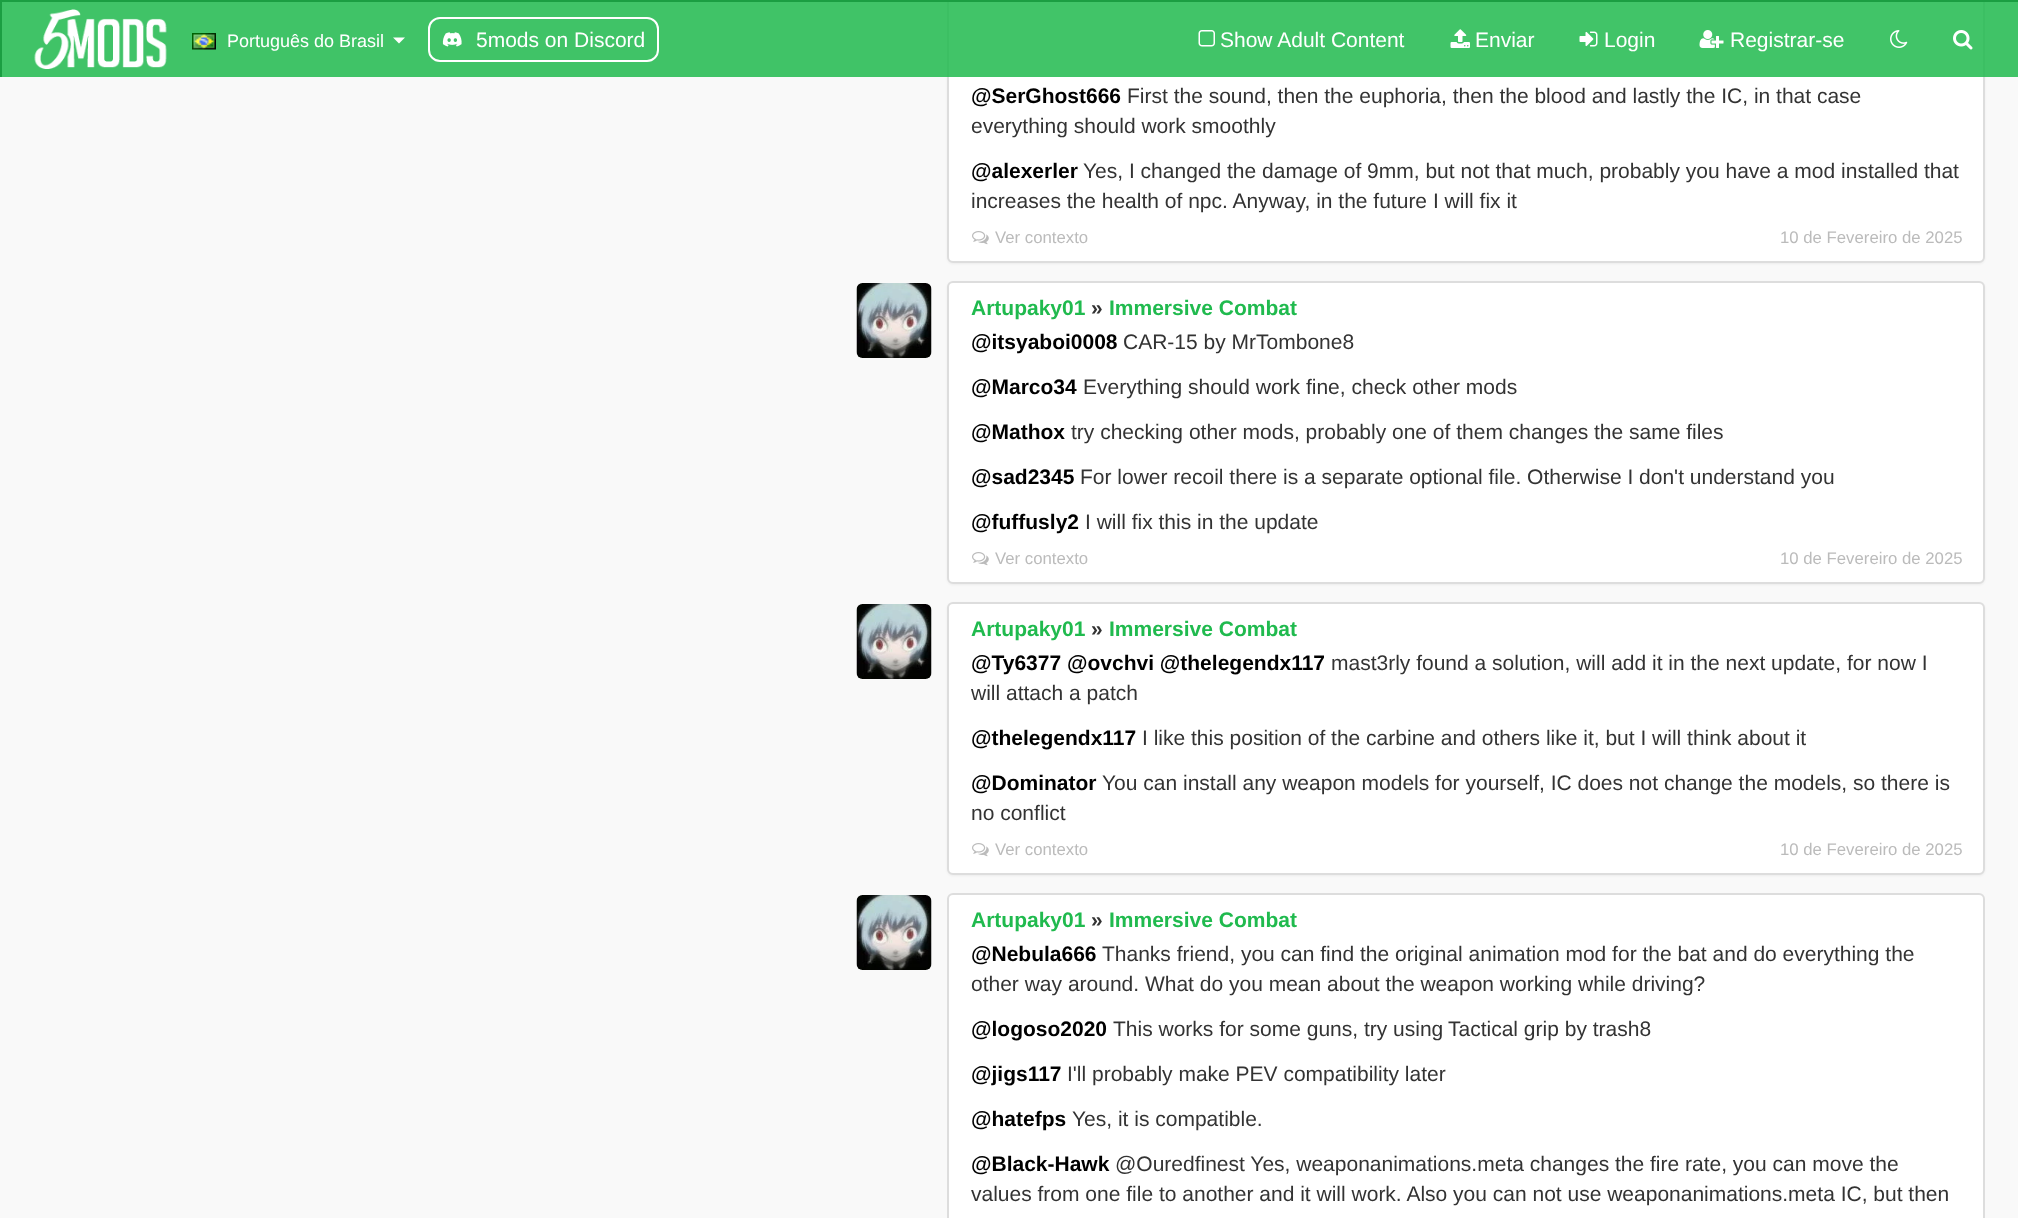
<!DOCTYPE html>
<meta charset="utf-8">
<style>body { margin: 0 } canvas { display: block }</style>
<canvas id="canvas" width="2018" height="1218"></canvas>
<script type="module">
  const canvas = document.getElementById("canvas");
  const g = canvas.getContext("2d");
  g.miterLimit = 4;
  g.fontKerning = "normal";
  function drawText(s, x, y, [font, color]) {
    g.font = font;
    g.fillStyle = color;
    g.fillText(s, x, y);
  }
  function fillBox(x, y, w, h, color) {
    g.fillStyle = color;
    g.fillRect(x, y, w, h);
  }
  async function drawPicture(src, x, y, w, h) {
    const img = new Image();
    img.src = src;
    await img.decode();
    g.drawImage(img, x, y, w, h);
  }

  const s1 = ["18px Liberation Sans", "#FFFFFF"];
  const s2 = ["21px Liberation Sans", "#FFFFFF"];
  const s3 = ["bold 21px Liberation Sans", "#000000"];
  const s4 = ["21px Liberation Sans", "#333333"];
  const s5 = ["16.75px Liberation Sans", "#BBBBBB"];
  const s6 = ["bold 21px Liberation Sans", "#20BA4E"];
  const s7 = ["bold 21px Liberation Sans", "#333333"];

  fillBox(0, 0, 2018, 1218, "#F9F9F9");
  g.fillStyle = "rgba(0, 0, 0, 0.05)";
  g.filter = "blur(1px)";
  g.beginPath();
  g.roundRect(947, -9, 1038, 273, 6);
  g.fill();
  g.filter = "none";
  g.fillStyle = "#FFFFFF";
  g.beginPath();
  g.roundRect(948, -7, 1036, 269, 5);
  g.fill();
  g.strokeStyle = "#DDDDDD";
  g.lineWidth = 2;
  g.stroke();
  fillBox(2, 2, 2016, 75, "rgba(32, 186, 78, 0.85)");
  fillBox(0, 0, 2018, 2, "#1B9E42");
  fillBox(0, 0, 2, 77, "#1B9E42");
  await drawPicture("pic1.png", 34, 9, 133, 60);
  await drawPicture("pic2.png", 192, 33, 24, 17);
  drawText("Português do Brasil", 227, 47, s1);
  g.beginPath();
  g.moveTo(393, 37.5);
  g.lineTo(405, 37.5);
  g.lineTo(399, 43.5);
  g.closePath();
  g.fill();
  g.beginPath();
  g.roundRect(429, 18, 229, 43, 11);
  g.strokeStyle = "#FFFFFF";
  g.stroke();
  await drawPicture("pic3.png", 442, 32, 20, 15);
  drawText("5mods on Discord", 476, 47, s2);
  await drawPicture("pic4.png", 1198, 30, 17, 17);
  drawText("Show Adult Content", 1220, 47, s2);
  await drawPicture("pic5.png", 1450, 29, 20, 19);
  drawText("Enviar", 1475, 47, s2);
  await drawPicture("pic6.png", 1579, 31, 19, 16);
  drawText("Login", 1604, 47, s2);
  await drawPicture("pic7.png", 1699, 30, 25, 18);
  drawText("Registrar-se", 1730, 47, s2);
  await drawPicture("pic8.png", 1890, 30, 18, 18);
  await drawPicture("pic9.png", 1953, 30, 20, 20);
  drawText("@SerGhost666", 971, 103, s3);
  drawText("First the sound, then the euphoria, then the blood and lastly the IC, in that case", 1127, 103, s4);
  drawText("everything should work smoothly", 971, 133, s4);
  drawText("@alexerler", 971, 178, s3);
  drawText("Yes, I changed the damage of 9mm, but not that much, probably you have a mod installed that", 1083, 178, s4);
  drawText("increases the health of npc. Anyway, in the future I will fix it", 971, 208, s4);
  await drawPicture("pic10.png", 972, 231, 17, 14);
  drawText("Ver contexto", 995, 243, s5);
  drawText("10 de Fevereiro de 2025", 1780, 243, s5);
  await drawPicture("pic11.png", 856, 283, 76, 75);
  g.fillStyle = "rgba(0, 0, 0, 0.05)";
  g.filter = "blur(1px)";
  g.beginPath();
  g.roundRect(947, 282, 1038, 303, 6);
  g.fill();
  g.filter = "none";
  g.fillStyle = "#FFFFFF";
  g.beginPath();
  g.roundRect(948, 282, 1036, 301, 5);
  g.fill();
  g.strokeStyle = "#DDDDDD";
  g.stroke();
  drawText("Artupaky01", 971, 315, s6);
  drawText("»", 1091, 315, s7);
  drawText("Immersive Combat", 1109, 315, s6);
  drawText("@itsyaboi0008", 971, 349, s3);
  drawText("CAR-15 by MrTombone8", 1123, 349, s4);
  drawText("@Marco34", 971, 394, s3);
  drawText("Everything should work fine, check other mods", 1083, 394, s4);
  drawText("@Mathox", 971, 439, s3);
  drawText("try checking other mods, probably one of them changes the same files", 1071, 439, s4);
  drawText("@sad2345", 971, 484, s3);
  drawText("For lower recoil there is a separate optional file. Otherwise I don't understand you", 1080, 484, s4);
  drawText("@fuffusly2", 971, 529, s3);
  drawText("I will fix this in the update", 1085, 529, s4);
  await drawPicture("pic10.png", 972, 552, 17, 14);
  drawText("Ver contexto", 995, 564, s5);
  drawText("10 de Fevereiro de 2025", 1780, 564, s5);
  await drawPicture("pic11.png", 856, 604, 76, 75);
  g.fillStyle = "rgba(0, 0, 0, 0.05)";
  g.filter = "blur(1px)";
  g.beginPath();
  g.roundRect(947, 603, 1038, 273, 6);
  g.fill();
  g.filter = "none";
  g.fillStyle = "#FFFFFF";
  g.beginPath();
  g.roundRect(948, 603, 1036, 271, 5);
  g.fill();
  g.stroke();
  drawText("Artupaky01", 971, 636, s6);
  drawText("»", 1091, 636, s7);
  drawText("Immersive Combat", 1109, 636, s6);
  drawText("@Ty6377 @ovchvi @thelegendx117", 971, 670, s3);
  drawText("mast3rly found a solution, will add it in the next update, for now I", 1331, 670, s4);
  drawText("will attach a patch", 971, 700, s4);
  drawText("@thelegendx117", 971, 745, s3);
  drawText("I like this position of the carbine and others like it, but I will think about it", 1142, 745, s4);
  drawText("@Dominator", 971, 790, s3);
  drawText("You can install any weapon models for yourself, IC does not change the models, so there is", 1102, 790, s4);
  drawText("no conflict", 971, 820, s4);
  await drawPicture("pic10.png", 972, 843, 17, 14);
  drawText("Ver contexto", 995, 855, s5);
  drawText("10 de Fevereiro de 2025", 1780, 855, s5);
  await drawPicture("pic11.png", 856, 895, 76, 75);
  g.fillStyle = "#FFFFFF";
  g.beginPath();
  g.roundRect(948, 894, 1036, 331, 5);
  g.fill();
  g.stroke();
  drawText("Artupaky01", 971, 927, s6);
  drawText("»", 1091, 927, s7);
  drawText("Immersive Combat", 1109, 927, s6);
  drawText("@Nebula666", 971, 961, s3);
  drawText("Thanks friend, you can find the original animation mod for the bat and do everything the", 1102, 961, s4);
  drawText("other way around. What do you mean about the weapon working while driving?", 971, 991, s4);
  drawText("@logoso2020", 971, 1036, s3);
  drawText("This works for some guns, try using", 1113, 1036, s4);
  drawText("Tactical grip by trash8", 1448, 1036, s4);
  drawText("@jigs117", 971, 1081, s3);
  drawText("I'll probably make PEV compatibility later", 1067, 1081, s4);
  drawText("@hatefps", 971, 1126, s3);
  drawText("Yes, it is compatible.", 1072, 1126, s4);
  drawText("@Black-Hawk", 971, 1171, s3);
  drawText("@Ouredfinest Yes, weaponanimations.meta changes the fire rate, you can move the", 1115, 1171, s4);
  drawText("values from one file to another and it will work. Also you can not use weaponanimations.meta IC, but then", 971, 1201, s4);
</script>
